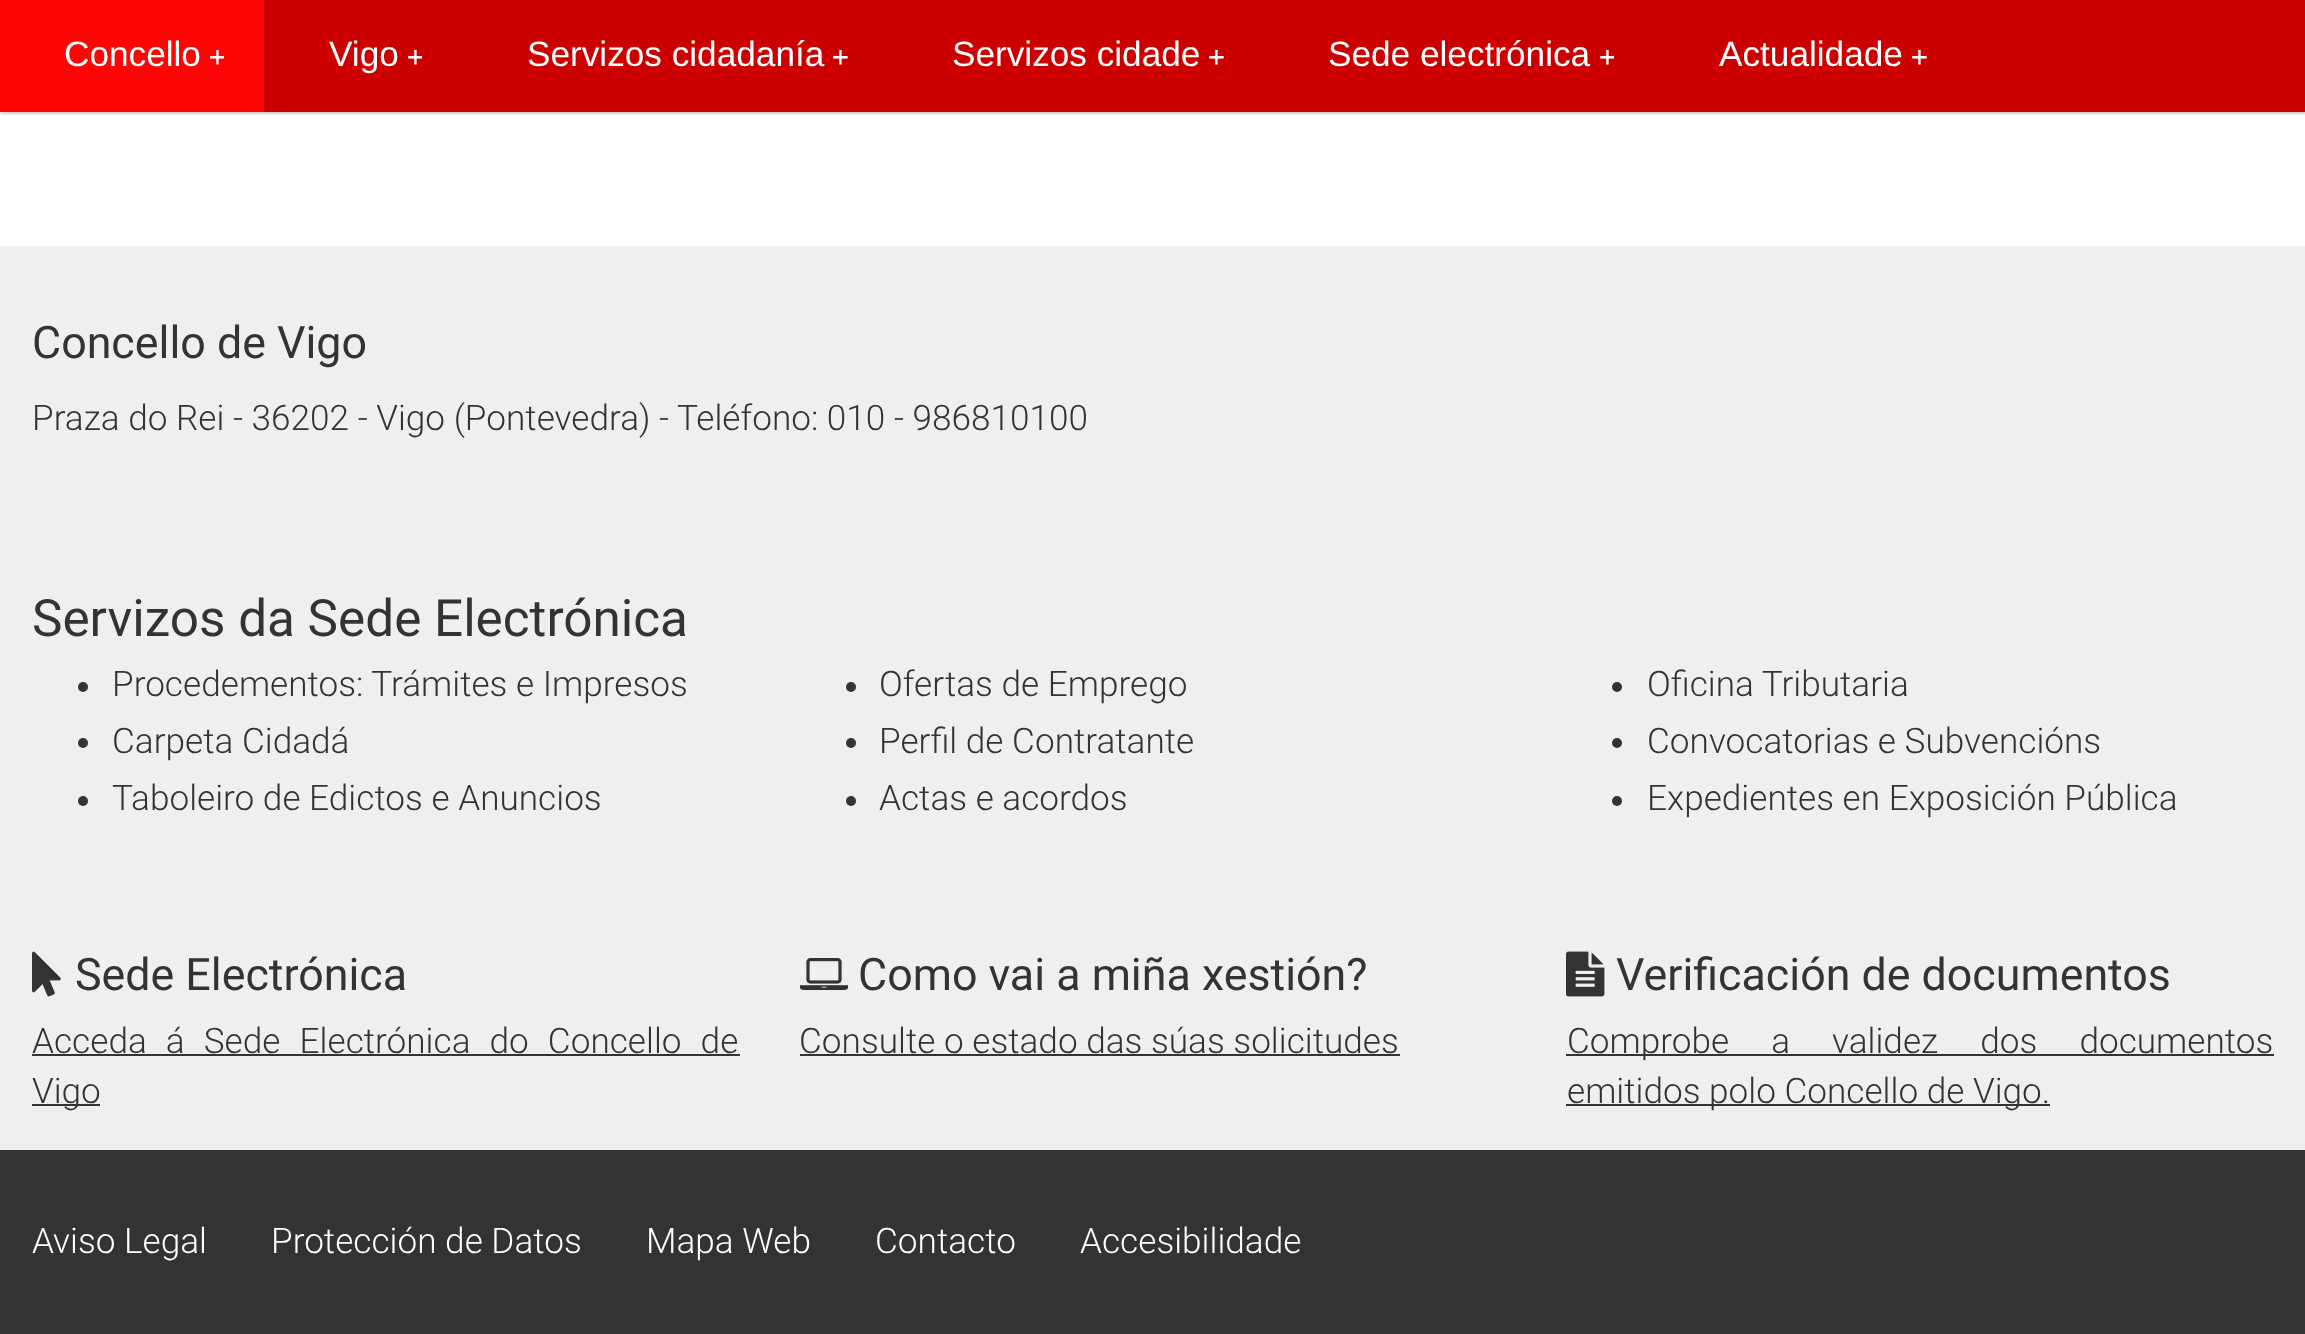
<!DOCTYPE html>
<meta charset="utf-8">
<style>body { margin: 0 } canvas { display: block }</style>
<canvas id="canvas" width="2305" height="1334"></canvas>
<script type="module">
  const canvas = document.getElementById("canvas");
  const g = canvas.getContext("2d");
  g.miterLimit = 4;
  g.fontKerning = "normal";
  function drawText(s, x, y, [font, color]) {
    g.font = font;
    g.fillStyle = color;
    g.fillText(s, x, y);
  }
  function fillBox(x, y, w, h, color) {
    g.fillStyle = color;
    g.fillRect(x, y, w, h);
  }
  async function drawPicture(src, x, y, w, h) {
    const img = new Image();
    img.src = src;
    await img.decode();
    g.drawImage(img, x, y, w, h);
  }

  const s1 = ["35.2px Liberation Sans", "#FFFFFF"];
  const s2 = ["28px DejaVu Sans Mono", "#FFFFFF"];
  const s3 = ["44.75px Roboto", "#333333"];
  const s4 = ["300 35.2px Roboto", "#333333"];
  const s5 = ["51.25px Roboto", "#333333"];
  const s6 = ["300 35.2px Roboto", "#FFFFFF"];

  fillBox(0, 0, 2305, 1334, "#FFFFFF");
  fillBox(264, 0, 2041, 112, "#CC0000");
  g.save();
  g.beginPath();
  g.rect(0, 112, 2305, 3);
  g.clip();
  g.fillStyle = "rgba(0, 0, 0, 0.2)";
  g.filter = "blur(1px)";
  g.beginPath();
  g.rect(0, 2, 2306, 112);
  g.fill();
  g.filter = "none";
  g.restore();
  fillBox(0, 0, 264, 112, "#FF0606");
  drawText("Concello", 64, 66, s1);
  g.save();
  g.beginPath();
  g.rect(208, 40, 16, 32);
  g.clip();
  drawText("+", 209, 66, s2);
  g.restore();
  drawText("Vigo", 329, 66, s1);
  g.save();
  g.beginPath();
  g.rect(406, 40, 16, 32);
  g.clip();
  drawText("+", 407, 66, s2);
  g.restore();
  drawText("Servizos cidadanía", 527, 66, s1);
  drawText("+", 832, 66, s2);
  drawText("Servizos cidade", 952, 66, s1);
  drawText("+", 1208, 66, s2);
  drawText("Sede electrónica", 1328, 66, s1);
  g.save();
  g.beginPath();
  g.rect(1598, 40, 16, 32);
  g.clip();
  drawText("+", 1599, 66, s2);
  g.restore();
  drawText("Actualidade", 1719, 66, s1);
  drawText("+", 1911, 66, s2);
  fillBox(0, 246, 2305, 904, "#F0EFEF");
  drawText("Concello de Vigo", 32, 358, s3);
  drawText("Praza do Rei - 36202 - Vigo (Pontevedra) - Teléfono: 010 - 986810100", 32, 430, s4);
  drawText("Servizos da Sede Electrónica", 32, 636, s5);
  g.beginPath();
  g.arc(83, 687, 5, 0, Math.PI * 2);
  g.fill();
  drawText("Procedementos: Trámites e Impresos", 112, 696, s4);
  g.beginPath();
  g.arc(83, 743, 5, 0, Math.PI * 2);
  g.fill();
  drawText("Carpeta Cidadá", 112, 753, s4);
  g.beginPath();
  g.arc(83, 801, 5, 0, Math.PI * 2);
  g.fill();
  drawText("Taboleiro de Edictos e Anuncios", 112, 810, s4);
  g.beginPath();
  g.arc(851, 687, 5, 0, Math.PI * 2);
  g.fill();
  drawText("Ofertas de Emprego", 879, 696, s4);
  g.beginPath();
  g.arc(851, 743, 5, 0, Math.PI * 2);
  g.fill();
  drawText("Perfil de Contratante", 879, 753, s4);
  g.beginPath();
  g.arc(851, 801, 5, 0, Math.PI * 2);
  g.fill();
  drawText("Actas e acordos", 879, 810, s4);
  g.beginPath();
  g.arc(1617, 687, 5, 0, Math.PI * 2);
  g.fill();
  drawText("Oficina Tributaria", 1647, 696, s4);
  g.beginPath();
  g.arc(1617, 743, 5, 0, Math.PI * 2);
  g.fill();
  drawText("Convocatorias e Subvencións", 1647, 753, s4);
  g.beginPath();
  g.arc(1617, 801, 5, 0, Math.PI * 2);
  g.fill();
  drawText("Expedientes en Exposición Pública", 1647, 810, s4);
  await drawPicture("pic1.png", 32, 951, 29, 46);
  drawText("Sede Electrónica", 75, 990, s3);
  g.wordSpacing = "10.5px";
  drawText("Acceda á Sede Electrónica do Concello de", 32, 1053, s4);
  fillBox(32, 1054, 708, 2, "#333333");
  fillBox(32, 1104, 68, 2, "#333333");
  g.wordSpacing = "0px";
  drawText("Vigo", 32, 1103, s4);
  await drawPicture("pic2.png", 800, 958, 48, 32);
  drawText("Como vai a miña xestión?", 858, 990, s3);
  drawText("Consulte o estado das súas solicitudes", 799, 1053, s4);
  fillBox(800, 1054, 600, 2, "#333333");
  await drawPicture("pic3.png", 1566, 951, 39, 46);
  drawText("Verificación de documentos", 1616, 990, s3);
  fillBox(1566, 1054, 708, 2, "#333333");
  g.wordSpacing = "33.5px";
  drawText("Comprobe a validez dos documentos", 1567, 1053, s4);
  fillBox(1566, 1104, 484, 2, "#333333");
  g.wordSpacing = "0px";
  drawText("emitidos polo Concello de Vigo.", 1567, 1103, s4);
  fillBox(0, 1150, 2305, 184, "#333333");
  drawText("Aviso Legal", 32, 1253, s6);
  drawText("Protección de Datos", 271, 1253, s6);
  drawText("Mapa Web", 646, 1253, s6);
  drawText("Contacto", 875, 1253, s6);
  drawText("Accesibilidade", 1080, 1253, s6);
</script>
